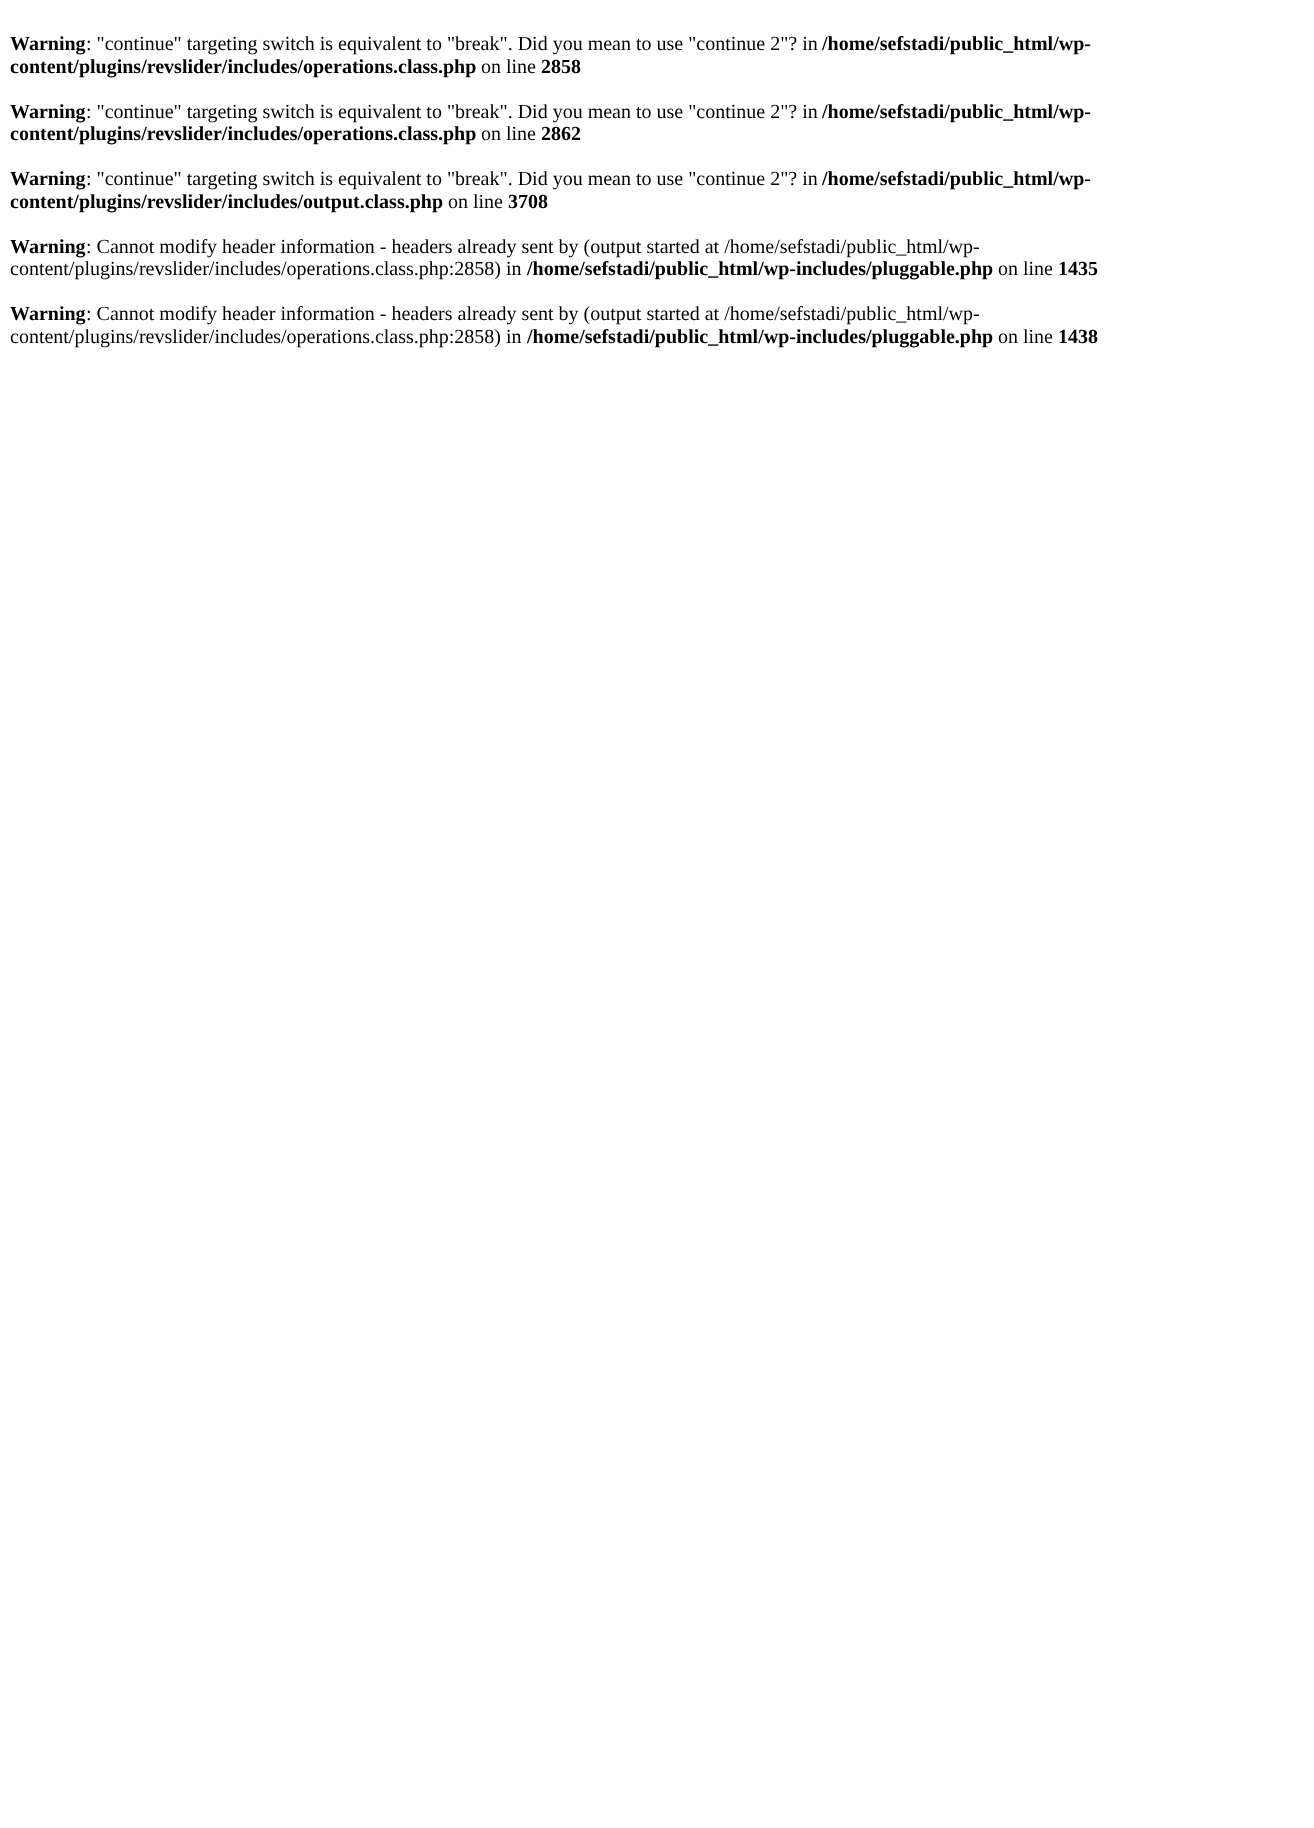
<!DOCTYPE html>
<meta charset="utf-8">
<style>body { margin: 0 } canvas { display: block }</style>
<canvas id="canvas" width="1314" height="1828"></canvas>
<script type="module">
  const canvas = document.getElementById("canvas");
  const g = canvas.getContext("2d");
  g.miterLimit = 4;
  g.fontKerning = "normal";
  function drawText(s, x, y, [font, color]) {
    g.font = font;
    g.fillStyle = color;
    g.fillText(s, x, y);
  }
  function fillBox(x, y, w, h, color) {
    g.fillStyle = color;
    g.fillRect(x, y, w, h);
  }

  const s1 = ["bold 20px Liberation Serif", "#000000"];
  const s2 = ["20px Liberation Serif", "#000000"];

  fillBox(0, 0, 1314, 1828, "#FFFFFF");
  drawText("Warning", 10, 50, s1);
  drawText(": \"continue\" targeting switch is equivalent to \"break\". Did you mean to use \"continue 2\"? in", 86, 50, s2);
  drawText("/home/sefstadi/public_html/wp-", 822, 50, s1);
  drawText("content/plugins/revslider/includes/operations.class.php", 10, 73, s1);
  drawText("on line", 481, 73, s2);
  drawText("2858", 541, 73, s1);
  drawText("Warning", 10, 118, s1);
  drawText(": \"continue\" targeting switch is equivalent to \"break\". Did you mean to use \"continue 2\"? in", 86, 118, s2);
  drawText("/home/sefstadi/public_html/wp-", 822, 118, s1);
  drawText("content/plugins/revslider/includes/operations.class.php", 10, 140, s1);
  drawText("on line", 481, 140, s2);
  drawText("2862", 541, 140, s1);
  drawText("Warning", 10, 185, s1);
  drawText(": \"continue\" targeting switch is equivalent to \"break\". Did you mean to use \"continue 2\"? in", 86, 185, s2);
  drawText("/home/sefstadi/public_html/wp-", 822, 185, s1);
  drawText("content/plugins/revslider/includes/output.class.php", 10, 208, s1);
  drawText("on line", 448, 208, s2);
  drawText("3708", 508, 208, s1);
  drawText("Warning", 10, 253, s1);
  drawText(": Cannot modify header information - headers already sent by (output started at /home/sefstadi/public_html/wp-", 86, 253, s2);
  drawText("content/plugins/revslider/includes/operations.class.php:2858) in", 10, 275, s2);
  drawText("/home/sefstadi/public_html/wp-includes/pluggable.php", 527, 275, s1);
  drawText("on line", 998, 275, s2);
  drawText("1435", 1058, 275, s1);
  drawText("Warning", 10, 320, s1);
  drawText(": Cannot modify header information - headers already sent by (output started at /home/sefstadi/public_html/wp-", 86, 320, s2);
  drawText("content/plugins/revslider/includes/operations.class.php:2858) in", 10, 343, s2);
  drawText("/home/sefstadi/public_html/wp-includes/pluggable.php", 527, 343, s1);
  drawText("on line", 998, 343, s2);
  drawText("1438", 1058, 343, s1);
</script>
